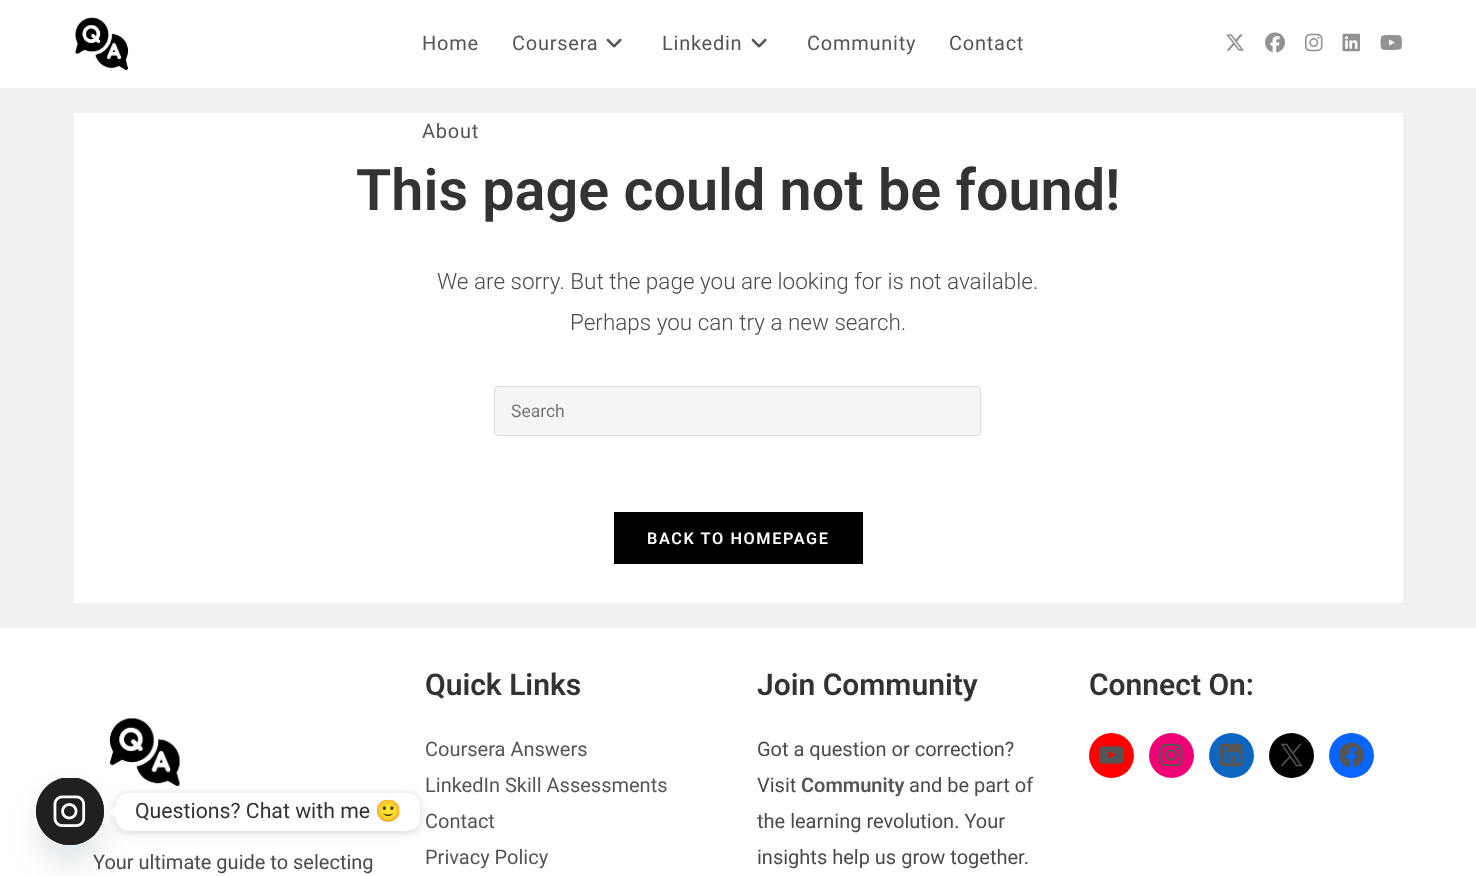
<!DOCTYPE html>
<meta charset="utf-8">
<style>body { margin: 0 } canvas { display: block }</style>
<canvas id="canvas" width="1476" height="876"></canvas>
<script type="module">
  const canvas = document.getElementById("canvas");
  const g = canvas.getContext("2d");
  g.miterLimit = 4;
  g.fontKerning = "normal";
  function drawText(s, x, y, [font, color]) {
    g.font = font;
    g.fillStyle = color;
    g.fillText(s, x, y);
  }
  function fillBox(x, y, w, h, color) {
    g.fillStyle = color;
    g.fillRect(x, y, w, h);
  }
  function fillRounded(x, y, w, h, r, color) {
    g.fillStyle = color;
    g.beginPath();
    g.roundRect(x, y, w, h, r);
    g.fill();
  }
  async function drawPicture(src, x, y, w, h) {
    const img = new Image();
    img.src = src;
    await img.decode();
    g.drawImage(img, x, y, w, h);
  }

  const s1 = ["20px Roboto", "#555555"];
  const s2 = ["600 57.5px Roboto", "#333333"];
  const s3 = ["300 22.5px Roboto", "#4A4A4A"];
  const s4 = ["17.5px Roboto", "#757575"];
  const s5 = ["600 16.25px Roboto", "#FFFFFF"];
  const s6 = ["600 30px Roboto", "#333333"];
  const s7 = ["20px Roboto", "#4A4A4A"];
  const s8 = ["600 20px Roboto", "#555555"];
  const s9 = ["21.25px Roboto", "#333333"];
  const s10 = ["21.25px Noto Color Emoji", "#333333"];

  fillBox(0, 0, 1476, 876, "#F1F1F1");
  fillBox(0, 0, 1476, 88, "#FFFFFF");
  await drawPicture("pic1.png", 75, 17, 54, 54);
  g.letterSpacing = "0.75px";
  drawText("Home", 422, 50, s1);
  drawText("Coursera", 512, 50, s1);
  await drawPicture("pic2.png", 606, 38, 16, 10);
  drawText("Linkedin", 662, 50, s1);
  await drawPicture("pic2.png", 751, 38, 16, 10);
  drawText("Community", 807, 50, s1);
  drawText("Contact", 949, 50, s1);
  fillBox(74, 113, 1329, 490, "#FFFFFF");
  drawText("About", 422, 138, s1);
  await drawPicture("pic3.png", 1226, 34, 18, 17);
  await drawPicture("pic4.png", 1265, 32, 20, 21);
  await drawPicture("pic5.png", 1305, 33, 18, 19);
  await drawPicture("pic6.png", 1342, 33, 18, 19);
  await drawPicture("pic7.png", 1380, 35, 22, 15);
  g.letterSpacing = "0px";
  drawText("This page could not be found!", 356, 210, s2);
  drawText("We are sorry. But the page you are looking for is not available.", 437, 289, s3);
  drawText("Perhaps you can try a new search.", 570, 330, s3);
  g.fillStyle = "#F5F5F5";
  g.beginPath();
  g.roundRect(494.5, 386.5, 486, 49, 3.5);
  g.fill();
  g.strokeStyle = "#DDDDDD";
  g.stroke();
  drawText("Search", 511, 417, s4);
  fillBox(614, 512, 249, 52, "#000000");
  g.letterSpacing = "1.6px";
  drawText("BACK TO HOMEPAGE", 647, 544, s5);
  fillBox(0, 628, 1476, 248, "#FFFFFF");
  g.letterSpacing = "0px";
  drawText("Quick Links", 425, 695, s6);
  drawText("Coursera Answers", 425, 756, s1);
  drawText("LinkedIn Skill Assessments", 425, 792, s1);
  drawText("Contact", 425, 828, s1);
  drawText("Privacy Policy", 425, 864, s1);
  drawText("Join Community", 757, 695, s6);
  drawText("Got a question or correction?", 757, 756, s7);
  drawText("Visit", 757, 792, s7);
  drawText("Community", 801, 792, s8);
  drawText("and be part of", 909, 792, s7);
  drawText("the learning revolution. Your", 757, 828, s7);
  drawText("insights help us grow together.", 757, 864, s7);
  drawText("Connect On:", 1089, 695, s6);
  g.fillStyle = "#FF0000";
  g.beginPath();
  g.arc(1111.5, 755.5, 22.5, 0, Math.PI * 2);
  g.fill();
  await drawPicture("pic8.png", 1098, 746, 26, 18);
  g.fillStyle = "#F00075";
  g.beginPath();
  g.arc(1171.5, 755.5, 22.5, 0, Math.PI * 2);
  g.fill();
  await drawPicture("pic9.png", 1160, 743, 23, 24);
  g.fillStyle = "#0D66C2";
  g.beginPath();
  g.arc(1231.5, 755.5, 22.5, 0, Math.PI * 2);
  g.fill();
  await drawPicture("pic10.png", 1220, 743, 23, 24);
  g.fillStyle = "#000000";
  g.beginPath();
  g.arc(1291.5, 755.5, 22.5, 0, Math.PI * 2);
  g.fill();
  await drawPicture("pic11.png", 1280, 743, 23, 24);
  g.fillStyle = "#0866FF";
  g.beginPath();
  g.arc(1351.5, 755.5, 22.5, 0, Math.PI * 2);
  g.fill();
  await drawPicture("pic12.png", 1338, 742, 26, 26);
  await drawPicture("pic13.png", 109, 717, 72, 70);
  drawText("Your ultimate guide to selecting", 93, 869, s7);
  g.fillStyle = "rgba(73, 104, 126, 0.16)";
  g.filter = "blur(15px)";
  g.beginPath();
  g.roundRect(36, 798, 68, 67, 33.5);
  g.fill();
  g.filter = "none";
  fillRounded(36, 778, 68, 67, 33.5, "#202020");
  await drawPicture("pic14.png", 36, 778, 68, 67);
  g.fillStyle = "rgba(0, 0, 0, 0.15)";
  g.filter = "blur(5px)";
  g.beginPath();
  g.roundRect(116, 794, 304, 39, 13);
  g.fill();
  g.filter = "none";
  fillRounded(116, 793, 304, 38, 13, "#FFFFFF");
  g.beginPath();
  g.moveTo(116, 805.5);
  g.lineTo(116, 818);
  g.lineTo(110, 812);
  g.closePath();
  g.fill();
  drawText("Questions? Chat with me", 135, 818, s9);
  drawText("🙂", 375, 818, s10);
</script>
